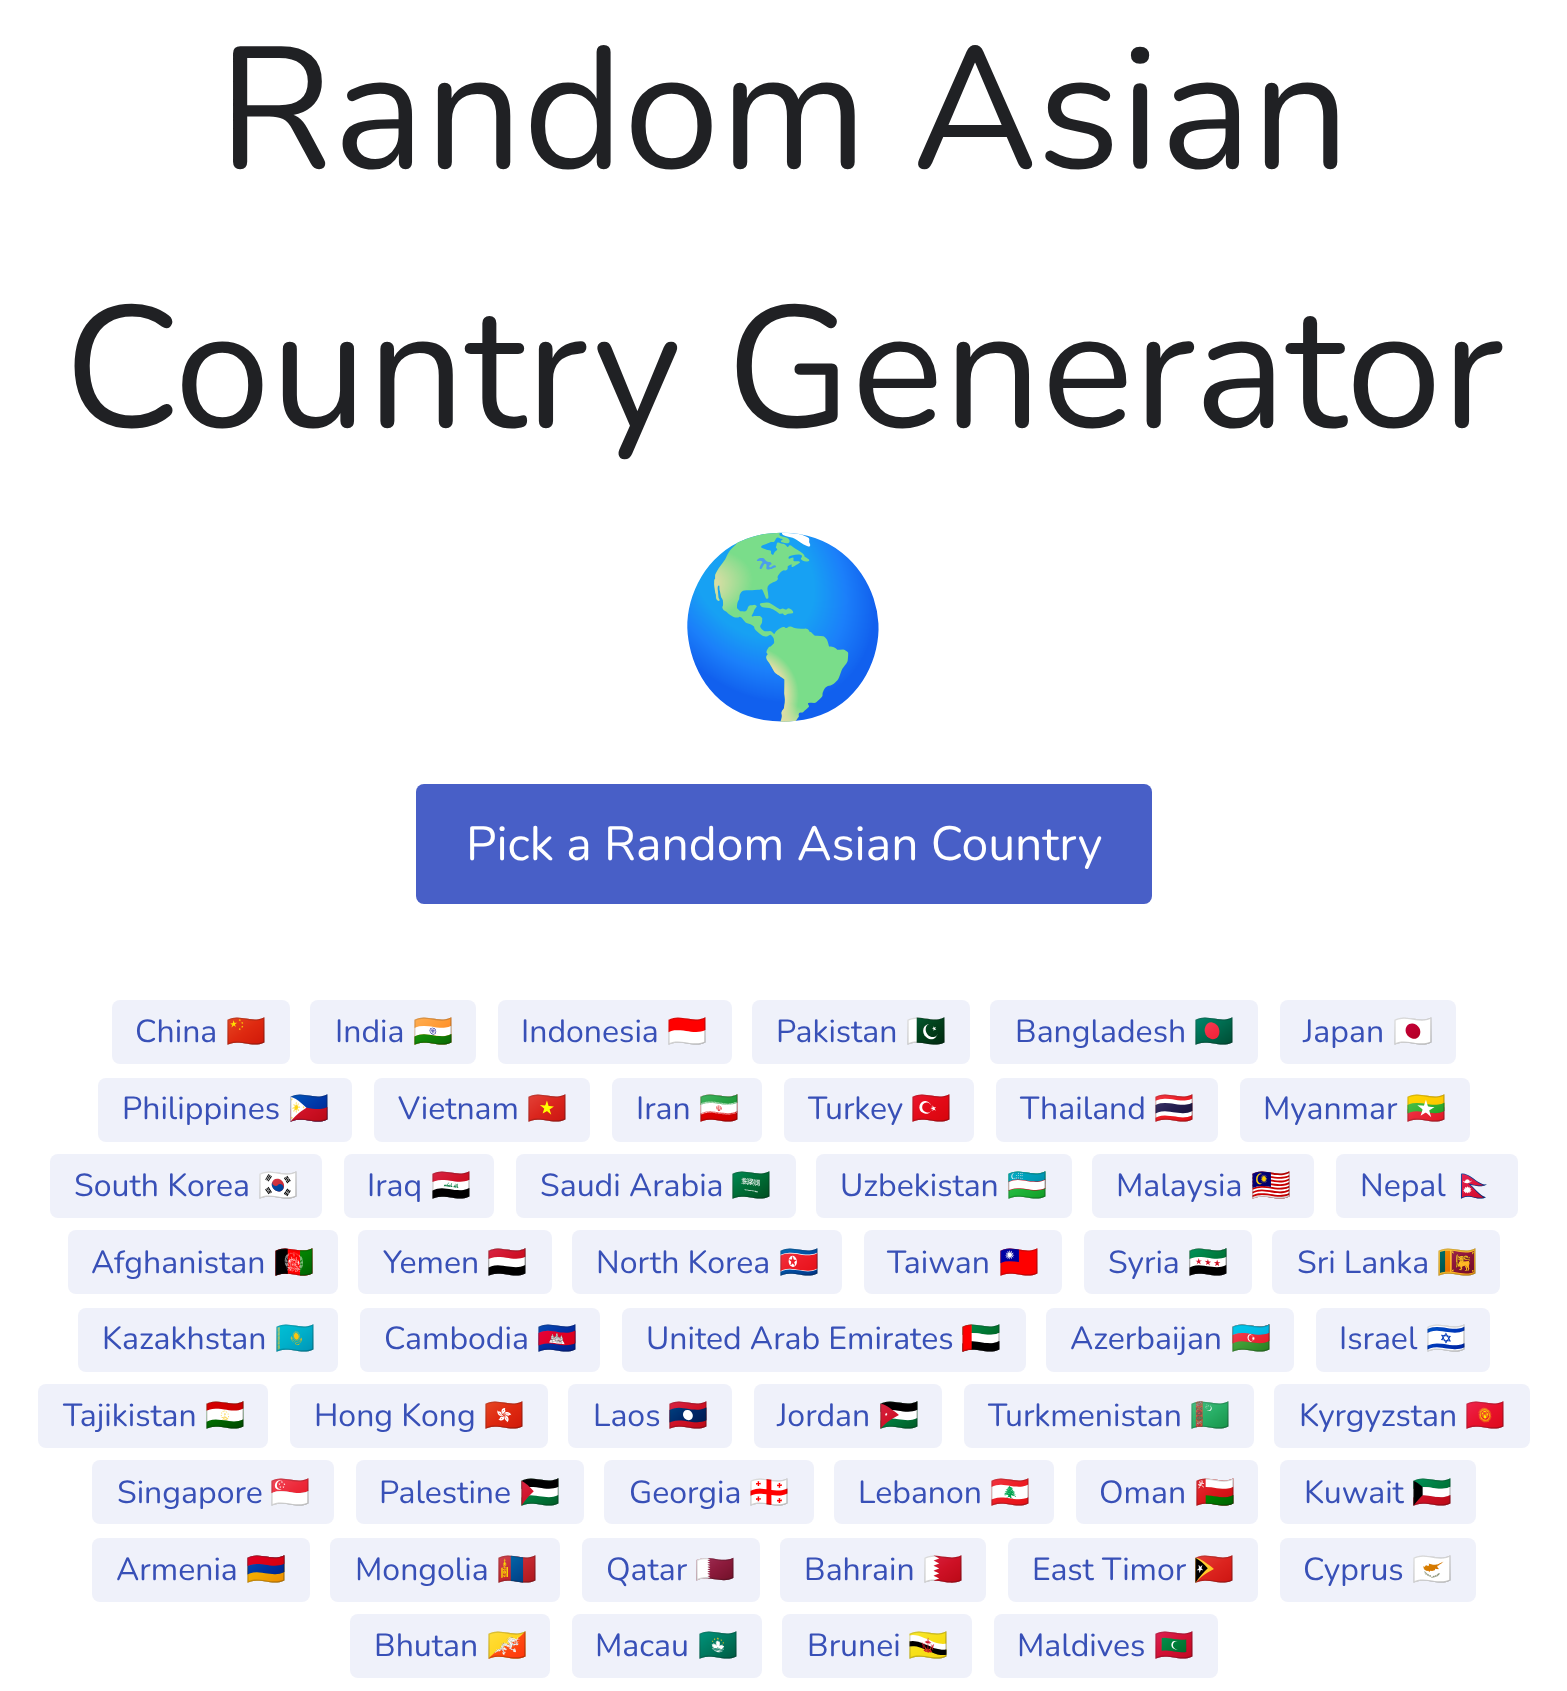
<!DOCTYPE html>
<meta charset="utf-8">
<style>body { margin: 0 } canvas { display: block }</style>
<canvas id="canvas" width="1567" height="1691"></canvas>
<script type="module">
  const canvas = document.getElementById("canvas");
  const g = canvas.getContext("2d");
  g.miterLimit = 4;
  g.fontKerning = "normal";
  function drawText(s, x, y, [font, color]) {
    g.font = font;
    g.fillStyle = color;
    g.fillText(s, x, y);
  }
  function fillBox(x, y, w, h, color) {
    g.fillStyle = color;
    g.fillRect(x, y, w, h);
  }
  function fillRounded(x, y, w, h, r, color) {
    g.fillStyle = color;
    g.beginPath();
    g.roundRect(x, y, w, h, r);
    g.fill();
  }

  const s1 = ["200 172.75px Nunito", "#202124"];
  const s2 = ["172.75px Noto Color Emoji", "#202124"];
  const s3 = ["200 48px Nunito", "#FFFFFF"];
  const s4 = ["200 32px Nunito", "#3850B7"];
  const s5 = ["32px Noto Color Emoji", "#3850B7"];

  fillBox(0, 0, 1567, 1691, "#FFFFFF");
  drawText("Random Asian", 218, 168, s1);
  drawText("Country Generator", 64, 427, s1);
  drawText("🌎", 676, 686, s2);
  fillRounded(416, 784, 736, 120, 8, "#485FC7");
  drawText("Pick a Random Asian Country", 466, 860, s3);
  fillRounded(112, 1000, 178, 64, 8, "#EFF1FA");
  drawText("China", 135, 1042, s4);
  drawText("🇨🇳", 226, 1042, s5);
  fillRounded(310, 1000, 166, 64, 8, "#EFF1FA");
  drawText("India", 335, 1042, s4);
  drawText("🇮🇳", 413, 1042, s5);
  fillRounded(498, 1000, 234, 64, 8, "#EFF1FA");
  drawText("Indonesia", 521, 1042, s4);
  drawText("🇮🇩", 667, 1042, s5);
  fillRounded(752, 1000, 218, 64, 8, "#EFF1FA");
  drawText("Pakistan", 776, 1042, s4);
  drawText("🇵🇰", 906, 1042, s5);
  fillRounded(990, 1000, 268, 64, 8, "#EFF1FA");
  drawText("Bangladesh", 1015, 1042, s4);
  drawText("🇧🇩", 1194, 1042, s5);
  fillRounded(1280, 1000, 176, 64, 8, "#EFF1FA");
  drawText("Japan", 1303, 1042, s4);
  drawText("🇯🇵", 1393, 1042, s5);
  fillRounded(98, 1078, 254, 64, 8, "#EFF1FA");
  drawText("Philippines", 122, 1119, s4);
  drawText("🇵🇭", 289, 1119, s5);
  fillRounded(374, 1078, 216, 64, 8, "#EFF1FA");
  drawText("Vietnam", 398, 1119, s4);
  drawText("🇻🇳", 527, 1119, s5);
  fillRounded(612, 1078, 150, 64, 8, "#EFF1FA");
  drawText("Iran", 636, 1119, s4);
  drawText("🇮🇷", 699, 1119, s5);
  fillRounded(784, 1078, 190, 64, 8, "#EFF1FA");
  drawText("Turkey", 808, 1119, s4);
  drawText("🇹🇷", 911, 1119, s5);
  fillRounded(996, 1078, 222, 64, 8, "#EFF1FA");
  drawText("Thailand", 1020, 1119, s4);
  drawText("🇹🇭", 1154, 1119, s5);
  fillRounded(1240, 1078, 230, 64, 8, "#EFF1FA");
  drawText("Myanmar", 1263, 1119, s4);
  drawText("🇲🇲", 1406, 1119, s5);
  fillRounded(50, 1154, 272, 64, 8, "#EFF1FA");
  drawText("South Korea", 74, 1196, s4);
  drawText("🇰🇷", 258, 1196, s5);
  fillRounded(344, 1154, 150, 64, 8, "#EFF1FA");
  drawText("Iraq", 367, 1196, s4);
  drawText("🇮🇶", 431, 1196, s5);
  fillRounded(516, 1154, 280, 64, 8, "#EFF1FA");
  drawText("Saudi Arabia", 540, 1196, s4);
  drawText("🇸🇦", 731, 1196, s5);
  fillRounded(816, 1154, 256, 64, 8, "#EFF1FA");
  drawText("Uzbekistan", 840, 1196, s4);
  drawText("🇺🇿", 1007, 1196, s5);
  fillRounded(1092, 1154, 222, 64, 8, "#EFF1FA");
  drawText("Malaysia", 1116, 1196, s4);
  drawText("🇲🇾", 1251, 1196, s5);
  fillRounded(1336, 1154, 182, 64, 8, "#EFF1FA");
  drawText("Nepal", 1360, 1196, s4);
  drawText("🇳🇵", 1454, 1196, s5);
  fillRounded(68, 1230, 270, 64, 8, "#EFF1FA");
  drawText("Afghanistan", 91, 1273, s4);
  drawText("🇦🇫", 274, 1273, s5);
  fillRounded(358, 1230, 194, 64, 8, "#EFF1FA");
  drawText("Yemen", 383, 1273, s4);
  drawText("🇾🇪", 487, 1273, s5);
  fillRounded(572, 1230, 270, 64, 8, "#EFF1FA");
  drawText("North Korea", 596, 1273, s4);
  drawText("🇰🇵", 779, 1273, s5);
  fillRounded(864, 1230, 198, 64, 8, "#EFF1FA");
  drawText("Taiwan", 887, 1273, s4);
  drawText("🇹🇼", 999, 1273, s5);
  fillRounded(1084, 1230, 168, 64, 8, "#EFF1FA");
  drawText("Syria", 1108, 1273, s4);
  drawText("🇸🇾", 1188, 1273, s5);
  fillRounded(1272, 1230, 228, 64, 8, "#EFF1FA");
  drawText("Sri Lanka", 1297, 1273, s4);
  drawText("🇱🇰", 1437, 1273, s5);
  fillRounded(78, 1308, 260, 64, 8, "#EFF1FA");
  drawText("Kazakhstan", 102, 1349, s4);
  drawText("🇰🇿", 275, 1349, s5);
  fillRounded(360, 1308, 240, 64, 8, "#EFF1FA");
  drawText("Cambodia", 384, 1349, s4);
  drawText("🇰🇭", 537, 1349, s5);
  fillRounded(622, 1308, 404, 64, 8, "#EFF1FA");
  drawText("United Arab Emirates", 646, 1349, s4);
  drawText("🇦🇪", 961, 1349, s5);
  fillRounded(1046, 1308, 248, 64, 8, "#EFF1FA");
  drawText("Azerbaijan", 1070, 1349, s4);
  drawText("🇦🇿", 1231, 1349, s5);
  fillRounded(1316, 1308, 174, 64, 8, "#EFF1FA");
  drawText("Israel", 1339, 1349, s4);
  drawText("🇮🇱", 1426, 1349, s5);
  fillRounded(38, 1384, 230, 64, 8, "#EFF1FA");
  drawText("Tajikistan", 63, 1426, s4);
  drawText("🇹🇯", 205, 1426, s5);
  fillRounded(290, 1384, 258, 64, 8, "#EFF1FA");
  drawText("Hong Kong", 314, 1426, s4);
  drawText("🇭🇰", 484, 1426, s5);
  fillRounded(568, 1384, 164, 64, 8, "#EFF1FA");
  drawText("Laos", 593, 1426, s4);
  drawText("🇱🇦", 668, 1426, s5);
  fillRounded(754, 1384, 188, 64, 8, "#EFF1FA");
  drawText("Jordan", 777, 1426, s4);
  drawText("🇯🇴", 879, 1426, s5);
  fillRounded(964, 1384, 290, 64, 8, "#EFF1FA");
  drawText("Turkmenistan", 988, 1426, s4);
  drawText("🇹🇲", 1190, 1426, s5);
  fillRounded(1274, 1384, 256, 64, 8, "#EFF1FA");
  drawText("Kyrgyzstan", 1299, 1426, s4);
  drawText("🇰🇬", 1465, 1426, s5);
  fillRounded(92, 1460, 242, 64, 8, "#EFF1FA");
  drawText("Singapore", 117, 1503, s4);
  drawText("🇸🇬", 270, 1503, s5);
  fillRounded(356, 1460, 228, 64, 8, "#EFF1FA");
  drawText("Palestine", 379, 1503, s4);
  drawText("🇵🇸", 520, 1503, s5);
  fillRounded(604, 1460, 210, 64, 8, "#EFF1FA");
  drawText("Georgia", 629, 1503, s4);
  drawText("🇬🇪", 749, 1503, s5);
  fillRounded(834, 1460, 220, 64, 8, "#EFF1FA");
  drawText("Lebanon", 858, 1503, s4);
  drawText("🇱🇧", 990, 1503, s5);
  fillRounded(1076, 1460, 182, 64, 8, "#EFF1FA");
  drawText("Oman", 1099, 1503, s4);
  drawText("🇴🇲", 1195, 1503, s5);
  fillRounded(1280, 1460, 196, 64, 8, "#EFF1FA");
  drawText("Kuwait", 1304, 1503, s4);
  drawText("🇰🇼", 1412, 1503, s5);
  fillRounded(92, 1538, 218, 64, 8, "#EFF1FA");
  drawText("Armenia", 116, 1580, s4);
  drawText("🇦🇲", 246, 1580, s5);
  fillRounded(330, 1538, 230, 64, 8, "#EFF1FA");
  drawText("Mongolia", 355, 1580, s4);
  drawText("🇲🇳", 497, 1580, s5);
  fillRounded(582, 1538, 178, 64, 8, "#EFF1FA");
  drawText("Qatar", 606, 1580, s4);
  drawText("🇶🇦", 695, 1580, s5);
  fillRounded(780, 1538, 206, 64, 8, "#EFF1FA");
  drawText("Bahrain", 804, 1580, s4);
  drawText("🇧🇭", 923, 1580, s5);
  fillRounded(1008, 1538, 250, 64, 8, "#EFF1FA");
  drawText("East Timor", 1032, 1580, s4);
  drawText("🇹🇱", 1194, 1580, s5);
  fillRounded(1280, 1538, 196, 64, 8, "#EFF1FA");
  drawText("Cyprus", 1303, 1580, s4);
  drawText("🇨🇾", 1412, 1580, s5);
  fillRounded(350, 1614, 200, 64, 8, "#EFF1FA");
  drawText("Bhutan", 374, 1656, s4);
  drawText("🇧🇹", 487, 1656, s5);
  fillRounded(572, 1614, 190, 64, 8, "#EFF1FA");
  drawText("Macau", 595, 1656, s4);
  drawText("🇲🇴", 698, 1656, s5);
  fillRounded(782, 1614, 190, 64, 8, "#EFF1FA");
  drawText("Brunei", 807, 1656, s4);
  drawText("🇧🇳", 908, 1656, s5);
  fillRounded(994, 1614, 224, 64, 8, "#EFF1FA");
  drawText("Maldives", 1017, 1656, s4);
  drawText("🇲🇻", 1154, 1656, s5);
</script>
